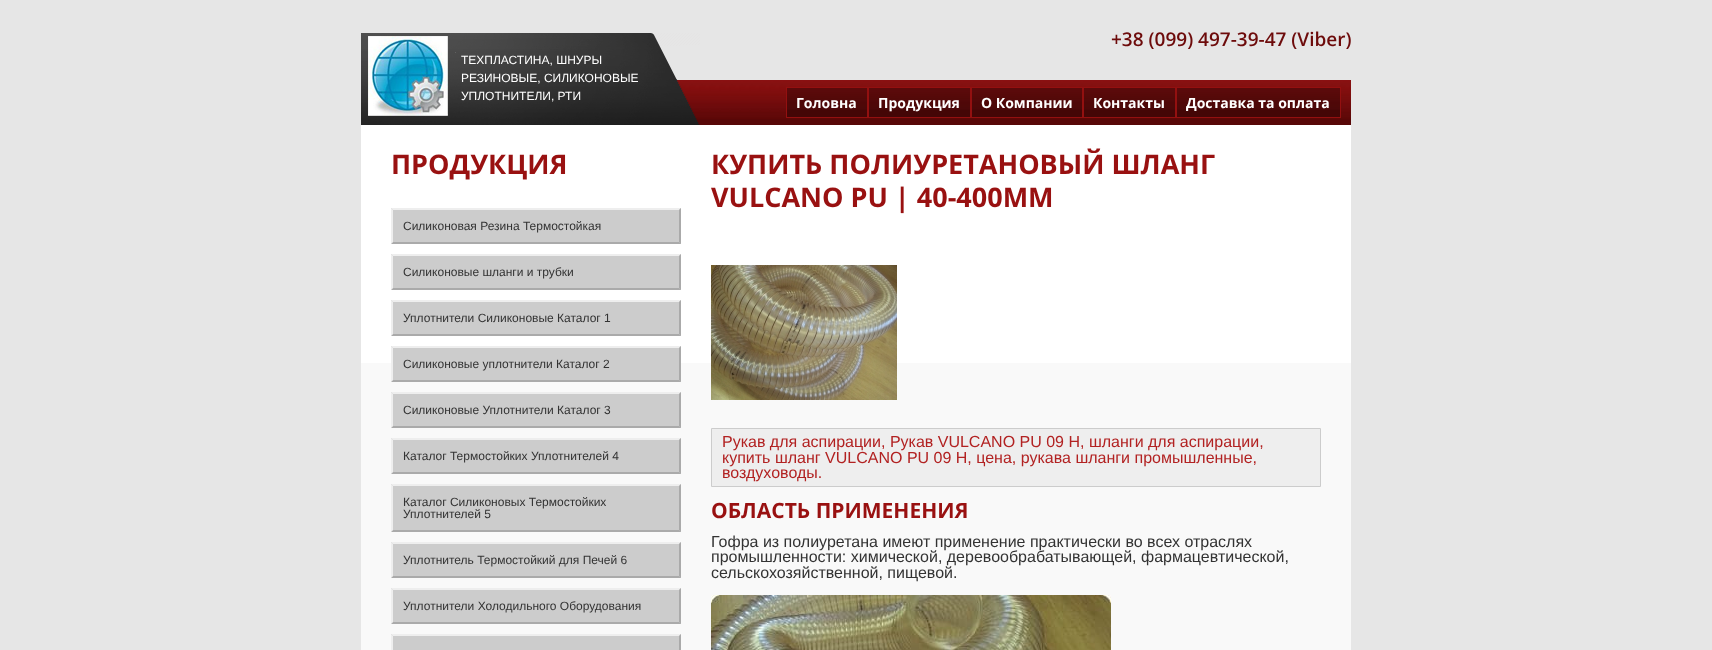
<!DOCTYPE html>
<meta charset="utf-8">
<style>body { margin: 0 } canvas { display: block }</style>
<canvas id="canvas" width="1712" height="650"></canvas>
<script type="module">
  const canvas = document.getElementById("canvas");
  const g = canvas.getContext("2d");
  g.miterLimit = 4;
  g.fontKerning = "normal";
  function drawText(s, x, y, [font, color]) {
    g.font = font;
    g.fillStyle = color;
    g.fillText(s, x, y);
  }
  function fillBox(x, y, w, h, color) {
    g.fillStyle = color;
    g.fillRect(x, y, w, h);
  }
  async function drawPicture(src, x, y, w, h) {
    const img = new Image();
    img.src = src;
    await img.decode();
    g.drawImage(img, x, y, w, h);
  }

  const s1 = ["600 19px Open Sans", "#6D0B0B"];
  const s2 = ["12px Liberation Sans", "#FFFFFF"];
  const s3 = ["bold 14px Open Sans", "#FFFFFF"];
  const s4 = ["bold 27px Open Sans", "#991111"];
  const s5 = ["12px Liberation Sans", "#333333"];
  const s6 = ["16px Liberation Sans", "#B22222"];
  const s7 = ["bold 21px Open Sans", "#991111"];
  const s8 = ["16px Liberation Sans", "#333333"];

  fillBox(0, 0, 1712, 650, "#E6E6E6");
  drawText("+38 (099) 497-39-47 (Viber)", 1111, 46, s1);
  fillBox(696, 119, 655, 6, "#580707");
  await drawPicture("pic3.png", 677, 80, 674, 39);
  await drawPicture("pic1.png", 361, 33, 339, 92);
  await drawPicture("pic2.png", 368, 36, 88, 80);
  drawText("ТЕХПЛАСТИНА, ШНУРЫ", 461, 64, s2);
  drawText("РЕЗИНОВЫЕ, СИЛИКОНОВЫЕ", 461, 82, s2);
  drawText("УПЛОТНИТЕЛИ, РТИ", 461, 100, s2);
  fillBox(787, 110, 80, 7, "#440606");
  await drawPicture("pic4.png", 787, 88, 80, 22);
  g.strokeStyle = "#931010";
  g.strokeRect(786.5, 87.5, 81, 30);
  drawText("Головна", 796, 108, s3);
  fillBox(869, 110, 101, 7, "#440606");
  await drawPicture("pic5.png", 869, 88, 101, 22);
  g.strokeRect(868.5, 87.5, 102, 30);
  drawText("Продукция", 878, 108, s3);
  fillBox(972, 110, 110, 7, "#440606");
  await drawPicture("pic6.png", 972, 88, 110, 22);
  g.strokeRect(971.5, 87.5, 111, 30);
  drawText("О Компании", 981, 108, s3);
  fillBox(1084, 110, 91, 7, "#440606");
  await drawPicture("pic7.png", 1084, 88, 91, 22);
  g.strokeRect(1083.5, 87.5, 92, 30);
  drawText("Контакты", 1093, 108, s3);
  fillBox(1177, 110, 163, 7, "#440606");
  await drawPicture("pic8.png", 1177, 88, 163, 22);
  g.strokeRect(1176.5, 87.5, 164, 30);
  drawText("Доставка та оплата", 1186, 108, s3);
  fillBox(361, 363, 990, 287, "#F9F9F9");
  fillBox(361, 125, 990, 238, "#FFFFFF");
  drawText("ПРОДУКЦИЯ", 391, 174, s4);
  fillBox(391, 208, 290, 36, "#CCCCCC");
  g.fillStyle = "#EEEEEE";
  g.beginPath();
  g.moveTo(391, 208);
  g.lineTo(681, 208);
  g.lineTo(679, 210);
  g.lineTo(393, 210);
  g.closePath();
  g.fill();
  g.fillStyle = "#AAAAAA";
  g.beginPath();
  g.moveTo(681, 208);
  g.lineTo(681, 244);
  g.lineTo(679, 242);
  g.lineTo(679, 210);
  g.closePath();
  g.fill();
  g.beginPath();
  g.moveTo(681, 244);
  g.lineTo(391, 244);
  g.lineTo(393, 242);
  g.lineTo(679, 242);
  g.closePath();
  g.fill();
  g.fillStyle = "#EEEEEE";
  g.beginPath();
  g.moveTo(391, 244);
  g.lineTo(391, 208);
  g.lineTo(393, 210);
  g.lineTo(393, 242);
  g.closePath();
  g.fill();
  drawText("Силиконовая Резина Термостойкая", 403, 230, s5);
  fillBox(391, 254, 290, 36, "#CCCCCC");
  g.fillStyle = "#EEEEEE";
  g.beginPath();
  g.moveTo(391, 254);
  g.lineTo(681, 254);
  g.lineTo(679, 256);
  g.lineTo(393, 256);
  g.closePath();
  g.fill();
  g.fillStyle = "#AAAAAA";
  g.beginPath();
  g.moveTo(681, 254);
  g.lineTo(681, 290);
  g.lineTo(679, 288);
  g.lineTo(679, 256);
  g.closePath();
  g.fill();
  g.beginPath();
  g.moveTo(681, 290);
  g.lineTo(391, 290);
  g.lineTo(393, 288);
  g.lineTo(679, 288);
  g.closePath();
  g.fill();
  g.fillStyle = "#EEEEEE";
  g.beginPath();
  g.moveTo(391, 290);
  g.lineTo(391, 254);
  g.lineTo(393, 256);
  g.lineTo(393, 288);
  g.closePath();
  g.fill();
  drawText("Силиконовые шланги и трубки", 403, 276, s5);
  fillBox(391, 300, 290, 36, "#CCCCCC");
  g.fillStyle = "#EEEEEE";
  g.beginPath();
  g.moveTo(391, 300);
  g.lineTo(681, 300);
  g.lineTo(679, 302);
  g.lineTo(393, 302);
  g.closePath();
  g.fill();
  g.fillStyle = "#AAAAAA";
  g.beginPath();
  g.moveTo(681, 300);
  g.lineTo(681, 336);
  g.lineTo(679, 334);
  g.lineTo(679, 302);
  g.closePath();
  g.fill();
  g.beginPath();
  g.moveTo(681, 336);
  g.lineTo(391, 336);
  g.lineTo(393, 334);
  g.lineTo(679, 334);
  g.closePath();
  g.fill();
  g.fillStyle = "#EEEEEE";
  g.beginPath();
  g.moveTo(391, 336);
  g.lineTo(391, 300);
  g.lineTo(393, 302);
  g.lineTo(393, 334);
  g.closePath();
  g.fill();
  drawText("Уплотнители Силиконовые Каталог 1", 403, 322, s5);
  fillBox(391, 346, 290, 36, "#CCCCCC");
  g.fillStyle = "#EEEEEE";
  g.beginPath();
  g.moveTo(391, 346);
  g.lineTo(681, 346);
  g.lineTo(679, 348);
  g.lineTo(393, 348);
  g.closePath();
  g.fill();
  g.fillStyle = "#AAAAAA";
  g.beginPath();
  g.moveTo(681, 346);
  g.lineTo(681, 382);
  g.lineTo(679, 380);
  g.lineTo(679, 348);
  g.closePath();
  g.fill();
  g.beginPath();
  g.moveTo(681, 382);
  g.lineTo(391, 382);
  g.lineTo(393, 380);
  g.lineTo(679, 380);
  g.closePath();
  g.fill();
  g.fillStyle = "#EEEEEE";
  g.beginPath();
  g.moveTo(391, 382);
  g.lineTo(391, 346);
  g.lineTo(393, 348);
  g.lineTo(393, 380);
  g.closePath();
  g.fill();
  drawText("Силиконовые уплотнители Каталог 2", 403, 368, s5);
  fillBox(391, 392, 290, 36, "#CCCCCC");
  g.fillStyle = "#EEEEEE";
  g.beginPath();
  g.moveTo(391, 392);
  g.lineTo(681, 392);
  g.lineTo(679, 394);
  g.lineTo(393, 394);
  g.closePath();
  g.fill();
  g.fillStyle = "#AAAAAA";
  g.beginPath();
  g.moveTo(681, 392);
  g.lineTo(681, 428);
  g.lineTo(679, 426);
  g.lineTo(679, 394);
  g.closePath();
  g.fill();
  g.beginPath();
  g.moveTo(681, 428);
  g.lineTo(391, 428);
  g.lineTo(393, 426);
  g.lineTo(679, 426);
  g.closePath();
  g.fill();
  g.fillStyle = "#EEEEEE";
  g.beginPath();
  g.moveTo(391, 428);
  g.lineTo(391, 392);
  g.lineTo(393, 394);
  g.lineTo(393, 426);
  g.closePath();
  g.fill();
  drawText("Силиконовые Уплотнители Каталог 3", 403, 414, s5);
  fillBox(391, 438, 290, 36, "#CCCCCC");
  g.fillStyle = "#EEEEEE";
  g.beginPath();
  g.moveTo(391, 438);
  g.lineTo(681, 438);
  g.lineTo(679, 440);
  g.lineTo(393, 440);
  g.closePath();
  g.fill();
  g.fillStyle = "#AAAAAA";
  g.beginPath();
  g.moveTo(681, 438);
  g.lineTo(681, 474);
  g.lineTo(679, 472);
  g.lineTo(679, 440);
  g.closePath();
  g.fill();
  g.beginPath();
  g.moveTo(681, 474);
  g.lineTo(391, 474);
  g.lineTo(393, 472);
  g.lineTo(679, 472);
  g.closePath();
  g.fill();
  g.fillStyle = "#EEEEEE";
  g.beginPath();
  g.moveTo(391, 474);
  g.lineTo(391, 438);
  g.lineTo(393, 440);
  g.lineTo(393, 472);
  g.closePath();
  g.fill();
  drawText("Каталог Термостойких Уплотнителей 4", 403, 460, s5);
  fillBox(391, 484, 290, 48, "#CCCCCC");
  g.fillStyle = "#EEEEEE";
  g.beginPath();
  g.moveTo(391, 484);
  g.lineTo(681, 484);
  g.lineTo(679, 486);
  g.lineTo(393, 486);
  g.closePath();
  g.fill();
  g.fillStyle = "#AAAAAA";
  g.beginPath();
  g.moveTo(681, 484);
  g.lineTo(681, 532);
  g.lineTo(679, 530);
  g.lineTo(679, 486);
  g.closePath();
  g.fill();
  g.beginPath();
  g.moveTo(681, 532);
  g.lineTo(391, 532);
  g.lineTo(393, 530);
  g.lineTo(679, 530);
  g.closePath();
  g.fill();
  g.fillStyle = "#EEEEEE";
  g.beginPath();
  g.moveTo(391, 532);
  g.lineTo(391, 484);
  g.lineTo(393, 486);
  g.lineTo(393, 530);
  g.closePath();
  g.fill();
  drawText("Каталог Силиконовых Термостойких", 403, 506, s5);
  drawText("Уплотнителей 5", 403, 518, s5);
  fillBox(391, 542, 290, 36, "#CCCCCC");
  g.fillStyle = "#EEEEEE";
  g.beginPath();
  g.moveTo(391, 542);
  g.lineTo(681, 542);
  g.lineTo(679, 544);
  g.lineTo(393, 544);
  g.closePath();
  g.fill();
  g.fillStyle = "#AAAAAA";
  g.beginPath();
  g.moveTo(681, 542);
  g.lineTo(681, 578);
  g.lineTo(679, 576);
  g.lineTo(679, 544);
  g.closePath();
  g.fill();
  g.beginPath();
  g.moveTo(681, 578);
  g.lineTo(391, 578);
  g.lineTo(393, 576);
  g.lineTo(679, 576);
  g.closePath();
  g.fill();
  g.fillStyle = "#EEEEEE";
  g.beginPath();
  g.moveTo(391, 578);
  g.lineTo(391, 542);
  g.lineTo(393, 544);
  g.lineTo(393, 576);
  g.closePath();
  g.fill();
  drawText("Уплотнитель Термостойкий для Печей 6", 403, 564, s5);
  fillBox(391, 588, 290, 36, "#CCCCCC");
  g.fillStyle = "#EEEEEE";
  g.beginPath();
  g.moveTo(391, 588);
  g.lineTo(681, 588);
  g.lineTo(679, 590);
  g.lineTo(393, 590);
  g.closePath();
  g.fill();
  g.fillStyle = "#AAAAAA";
  g.beginPath();
  g.moveTo(681, 588);
  g.lineTo(681, 624);
  g.lineTo(679, 622);
  g.lineTo(679, 590);
  g.closePath();
  g.fill();
  g.beginPath();
  g.moveTo(681, 624);
  g.lineTo(391, 624);
  g.lineTo(393, 622);
  g.lineTo(679, 622);
  g.closePath();
  g.fill();
  g.fillStyle = "#EEEEEE";
  g.beginPath();
  g.moveTo(391, 624);
  g.lineTo(391, 588);
  g.lineTo(393, 590);
  g.lineTo(393, 622);
  g.closePath();
  g.fill();
  drawText("Уплотнители Холодильного Оборудования", 403, 610, s5);
  fillBox(391, 634, 290, 16, "#CCCCCC");
  g.fillStyle = "#EEEEEE";
  g.beginPath();
  g.moveTo(391, 634);
  g.lineTo(681, 634);
  g.lineTo(679, 636);
  g.lineTo(393, 636);
  g.closePath();
  g.fill();
  g.fillStyle = "#AAAAAA";
  g.beginPath();
  g.moveTo(681, 634);
  g.lineTo(681, 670);
  g.lineTo(679, 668);
  g.lineTo(679, 636);
  g.closePath();
  g.fill();
  g.fillStyle = "#EEEEEE";
  g.beginPath();
  g.moveTo(391, 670);
  g.lineTo(391, 634);
  g.lineTo(393, 636);
  g.lineTo(393, 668);
  g.closePath();
  g.fill();
  drawText("КУПИТЬ ПОЛИУРЕТАНОВЫЙ ШЛАНГ", 711, 174, s4);
  drawText("VULCANO PU | 40-400ММ", 711, 207, s4);
  await drawPicture("pic9.png", 711, 265, 186, 135);
  g.fillStyle = "#EEEEEE";
  g.beginPath();
  g.rect(711.5, 428.5, 609, 58);
  g.fill();
  g.strokeStyle = "#CCCCCC";
  g.stroke();
  drawText("Рукав для аспирации, Рукав VULCANO PU 09 H, шланги для аспирации,", 722, 447, s6);
  drawText("купить шланг VULCANO PU 09 H, цена, рукава шланги промышленные,", 722, 463, s6);
  drawText("воздуховоды.", 722, 478, s6);
  drawText("ОБЛАСТЬ ПРИМЕНЕНИЯ", 711, 518, s7);
  drawText("Гофра из полиуретана имеют применение практически во всех отраслях", 711, 547, s8);
  drawText("промышленности: химической, деревообрабатывающей, фармацевтической,", 711, 562, s8);
  drawText("сельскохозяйственной, пищевой.", 711, 578, s8);
  await drawPicture("pic10.png", 711, 595, 400, 55);
</script>
